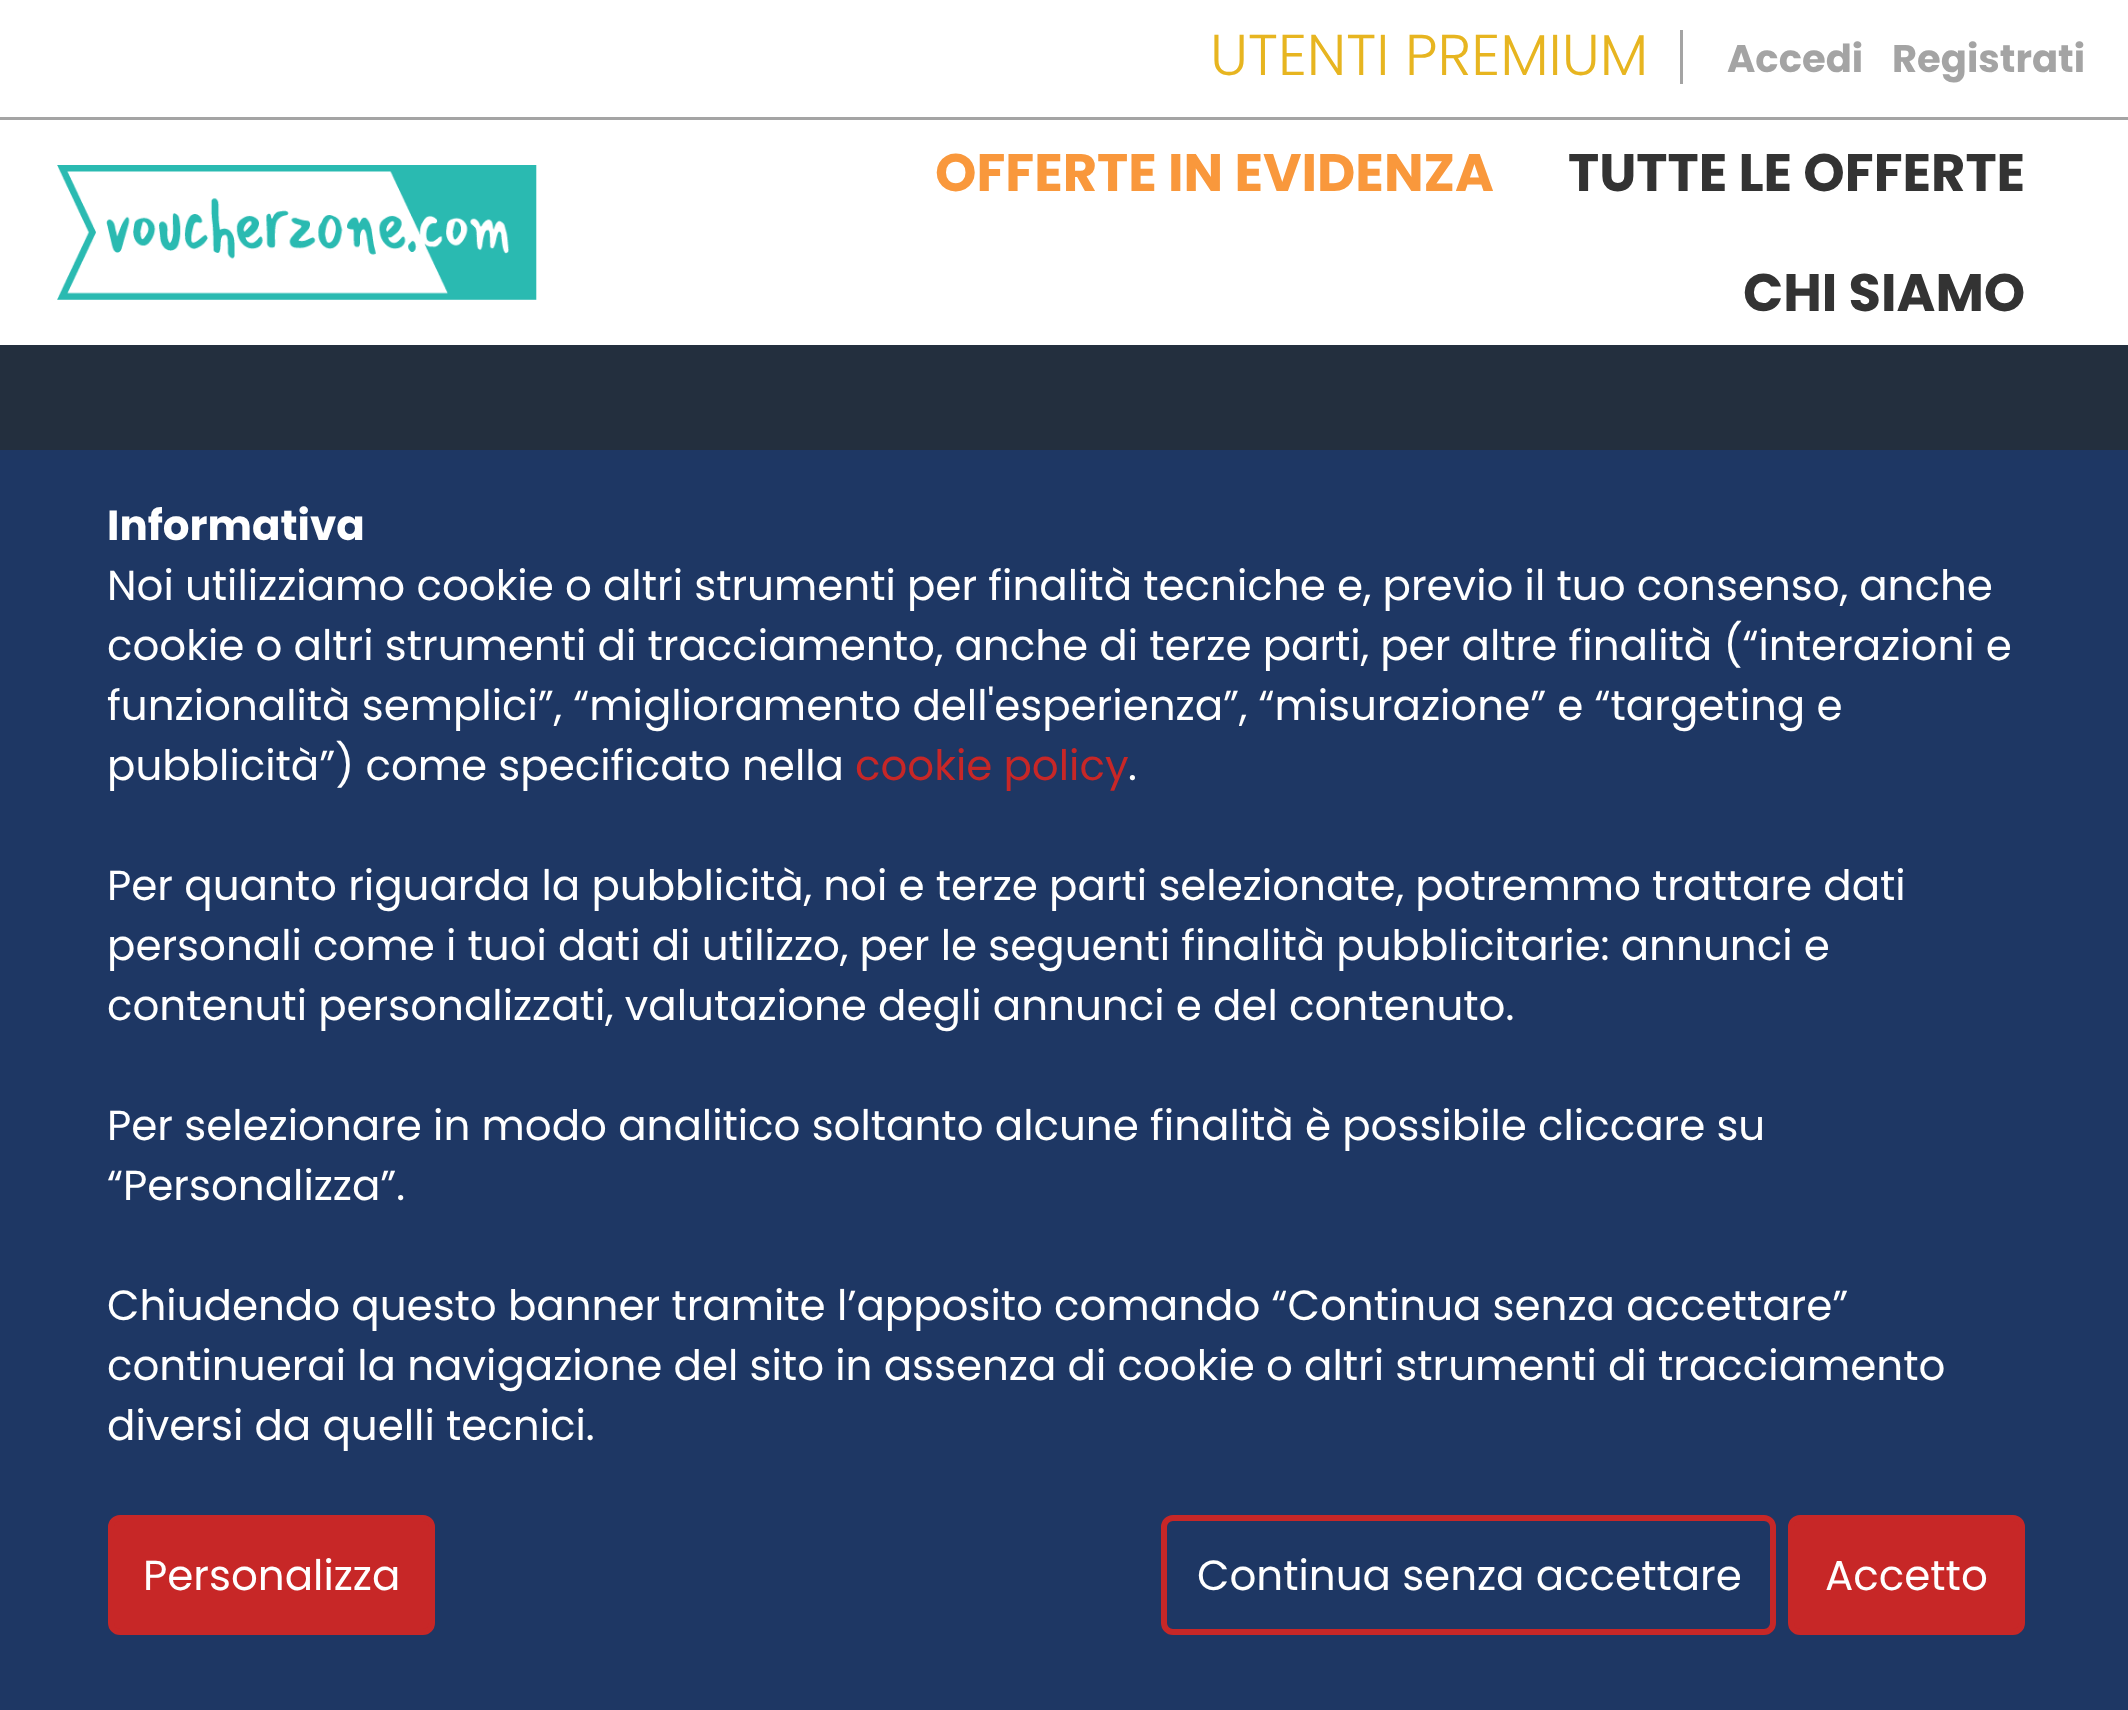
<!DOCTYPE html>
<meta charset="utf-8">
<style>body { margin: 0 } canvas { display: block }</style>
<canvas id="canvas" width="2128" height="1710"></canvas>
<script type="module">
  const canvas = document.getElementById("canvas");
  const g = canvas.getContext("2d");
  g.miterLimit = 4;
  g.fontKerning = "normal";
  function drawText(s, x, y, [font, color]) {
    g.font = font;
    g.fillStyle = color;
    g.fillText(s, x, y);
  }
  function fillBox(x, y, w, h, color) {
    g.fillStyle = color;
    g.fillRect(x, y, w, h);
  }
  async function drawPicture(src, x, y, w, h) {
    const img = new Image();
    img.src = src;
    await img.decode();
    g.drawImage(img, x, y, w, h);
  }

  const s1 = ["300 57.5px Poppins", "#E7B520"];
  const s2 = ["bold 38.5px Poppins", "#A4A4A4"];
  const s3 = ["bold 52.75px Poppins", "#F9983C"];
  const s4 = ["bold 52.75px Poppins", "#333333"];
  const s5 = ["bold 42px Poppins", "#FFFFFF"];
  const s6 = ["42px Poppins", "#FFFFFF"];
  const s7 = ["42px Poppins", "#C72727"];

  fillBox(0, 0, 2128, 1710, "#FFFFFF");
  fillBox(0, 117, 2128, 3, "#A4A4A4");
  fillBox(1680, 30, 3, 54, "#A4A4A4");
  drawText("UTENTI PREMIUM", 1210, 75, s1);
  drawText("Accedi", 1727, 72, s2);
  drawText("Registrati", 1892, 72, s2);
  await drawPicture("pic1.png", 57, 165, 480, 135);
  drawText("OFFERTE IN EVIDENZA", 935, 191, s3);
  drawText("TUTTE LE OFFERTE", 1568, 191, s4);
  drawText("CHI SIAMO", 1743, 311, s4);
  fillBox(0, 345, 2128, 105, "#232F3E");
  fillBox(0, 450, 2128, 1260, "#1E3764");
  drawText("Informativa", 107, 540, s5);
  drawText("Noi utilizziamo cookie o altri strumenti per finalità tecniche e, previo il tuo consenso, anche", 107, 600, s6);
  drawText("cookie o altri strumenti di tracciamento, anche di terze parti, per altre finalità (“interazioni e", 107, 660, s6);
  drawText("funzionalità semplici”, “miglioramento dell'esperienza”, “misurazione” e “targeting e", 107, 720, s6);
  drawText("pubblicità”) come specificato nella", 107, 780, s6);
  drawText("cookie policy", 855, 780, s7);
  drawText(".", 1128, 780, s6);
  drawText("Per quanto riguarda la pubblicità, noi e terze parti selezionate, potremmo trattare dati", 107, 900, s6);
  drawText("personali come i tuoi dati di utilizzo, per le seguenti finalità pubblicitarie: annunci e", 107, 960, s6);
  drawText("contenuti personalizzati, valutazione degli annunci e del contenuto.", 107, 1020, s6);
  drawText("Per selezionare in modo analitico soltanto alcune finalità è possibile cliccare su", 107, 1140, s6);
  drawText("“Personalizza”.", 107, 1200, s6);
  drawText("Chiudendo questo banner tramite l’apposito comando “Continua senza accettare”", 107, 1320, s6);
  drawText("continuerai la navigazione del sito in assenza di cookie o altri strumenti di tracciamento", 107, 1380, s6);
  drawText("diversi da quelli tecnici.", 107, 1440, s6);
  g.fillStyle = "#C72727";
  g.beginPath();
  g.roundRect(111, 1518, 321, 114, 9);
  g.fill();
  g.strokeStyle = "#C72727";
  g.lineWidth = 6;
  g.stroke();
  drawText("Personalizza", 143, 1590, s6);
  g.beginPath();
  g.roundRect(1164, 1518, 609, 114, 9);
  g.stroke();
  drawText("Continua senza accettare", 1197, 1590, s6);
  g.fillStyle = "#C72727";
  g.beginPath();
  g.roundRect(1791, 1518, 231, 114, 9);
  g.fill();
  g.stroke();
  drawText("Accetto", 1825, 1590, s6);
</script>
